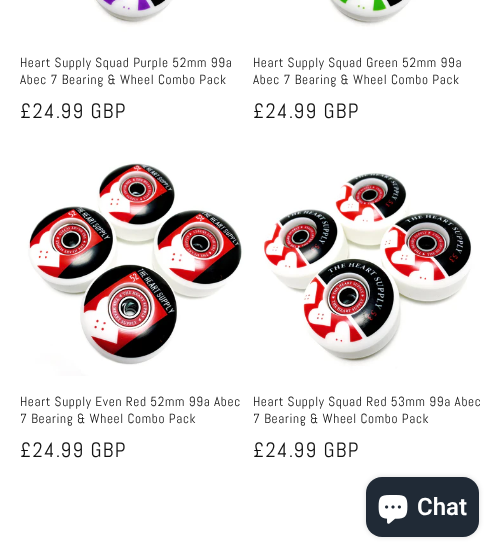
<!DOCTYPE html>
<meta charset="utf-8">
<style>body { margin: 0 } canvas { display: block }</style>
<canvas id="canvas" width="501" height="558"></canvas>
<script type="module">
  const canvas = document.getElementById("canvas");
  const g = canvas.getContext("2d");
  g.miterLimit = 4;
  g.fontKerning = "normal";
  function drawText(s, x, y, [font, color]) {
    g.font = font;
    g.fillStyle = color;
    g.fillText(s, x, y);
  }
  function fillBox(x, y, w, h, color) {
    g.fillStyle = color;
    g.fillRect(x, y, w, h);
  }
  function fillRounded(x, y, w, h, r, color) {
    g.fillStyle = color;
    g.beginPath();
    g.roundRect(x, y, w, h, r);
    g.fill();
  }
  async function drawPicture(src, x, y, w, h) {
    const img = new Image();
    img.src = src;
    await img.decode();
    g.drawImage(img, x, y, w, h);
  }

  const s1 = ["13.25px Abel", "#121212"];
  const s2 = ["20.75px Abel", "#121212"];
  const s3 = ["600 24px Roboto", "#FFFFFF"];

  fillBox(0, 0, 501, 558, "#FFFFFF");
  await drawPicture("pic1.png", 20, 0, 229, 37);
  g.letterSpacing = "0.65px";
  drawText("Heart Supply Squad Purple 52mm 99a", 20, 67, s1);
  drawText("Abec 7 Bearing & Wheel Combo Pack", 20, 84, s1);
  g.letterSpacing = "1.25px";
  drawText("£24.99 GBP", 20, 118, s2);
  await drawPicture("pic2.png", 253, 0, 229, 37);
  g.letterSpacing = "0.65px";
  drawText("Heart Supply Squad Green 52mm 99a", 253, 67, s1);
  drawText("Abec 7 Bearing & Wheel Combo Pack", 253, 84, s1);
  g.letterSpacing = "1.25px";
  drawText("£24.99 GBP", 253, 118, s2);
  await drawPicture("pic3.png", 20, 147, 229, 229);
  g.letterSpacing = "0.65px";
  drawText("Heart Supply Even Red 52mm 99a Abec", 20, 406, s1);
  drawText("7 Bearing & Wheel Combo Pack", 20, 423, s1);
  g.letterSpacing = "1.25px";
  drawText("£24.99 GBP", 20, 457, s2);
  await drawPicture("pic4.png", 253, 147, 229, 229);
  g.letterSpacing = "0.65px";
  drawText("Heart Supply Squad Red 53mm 99a Abec", 253, 406, s1);
  drawText("7 Bearing & Wheel Combo Pack", 253, 423, s1);
  g.letterSpacing = "1.25px";
  drawText("£24.99 GBP", 253, 457, s2);
  g.fillStyle = "rgba(0, 0, 0, 0.15)";
  g.filter = "blur(2.5px)";
  g.beginPath();
  g.roundRect(366, 477, 113, 60, 16);
  g.fill();
  g.filter = "none";
  fillRounded(366, 477, 113, 60, 16, "#202A36");
  await drawPicture("pic5.png", 378, 495, 30, 29);
  g.letterSpacing = "0px";
  drawText("Chat", 417, 515, s3);
</script>
